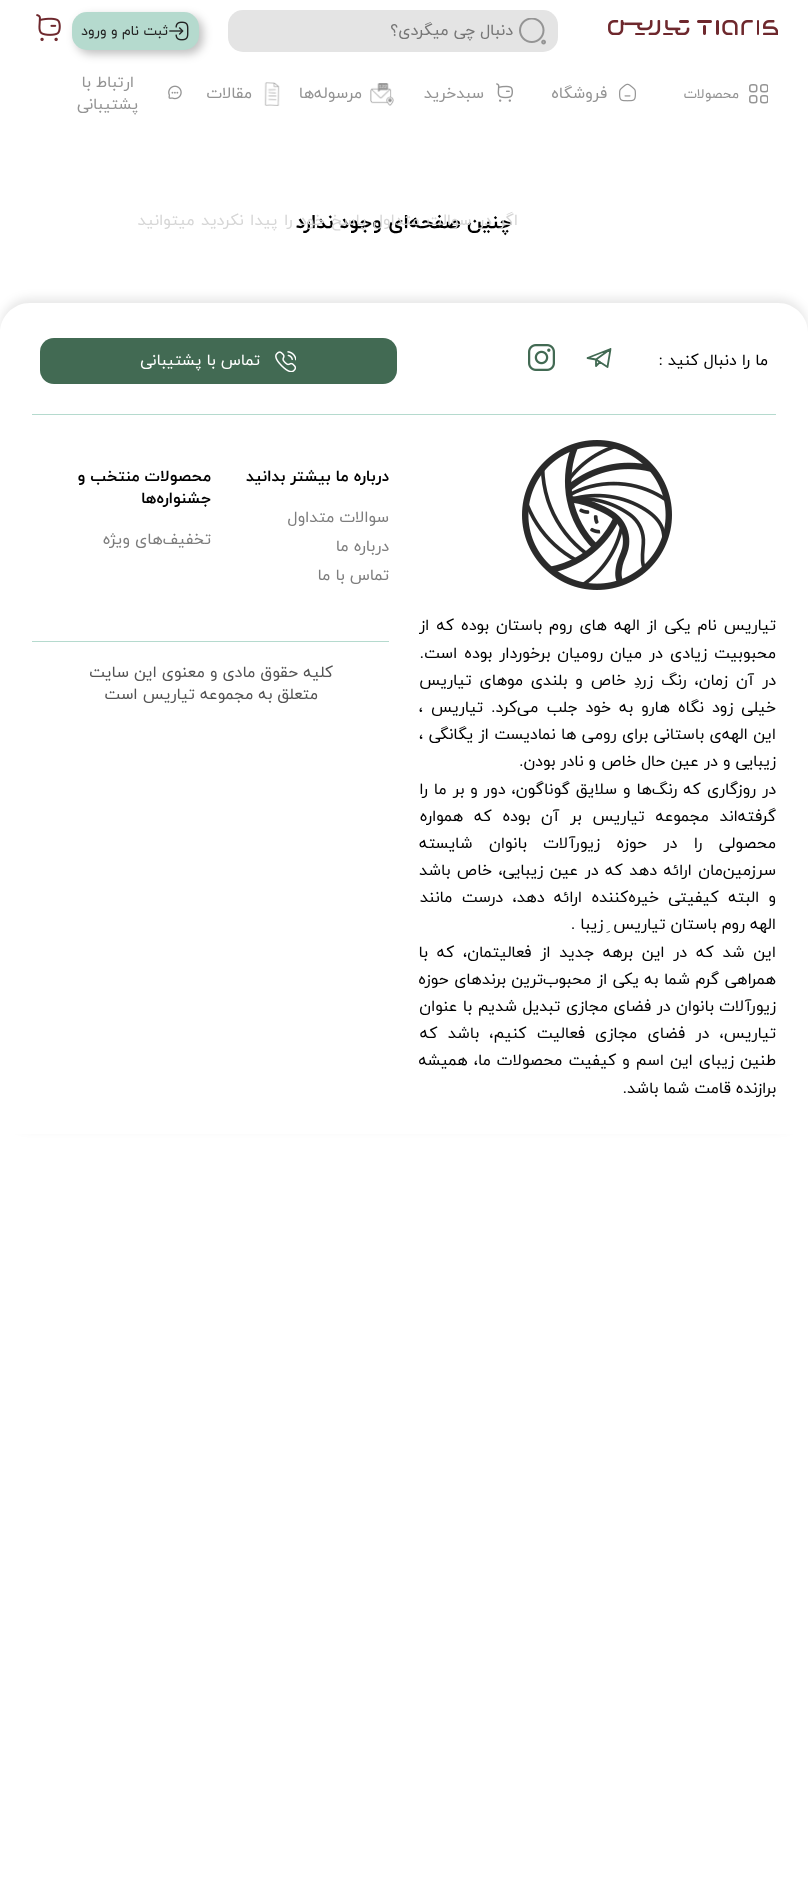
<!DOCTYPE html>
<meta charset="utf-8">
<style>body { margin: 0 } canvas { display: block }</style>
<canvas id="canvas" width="808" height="1880"></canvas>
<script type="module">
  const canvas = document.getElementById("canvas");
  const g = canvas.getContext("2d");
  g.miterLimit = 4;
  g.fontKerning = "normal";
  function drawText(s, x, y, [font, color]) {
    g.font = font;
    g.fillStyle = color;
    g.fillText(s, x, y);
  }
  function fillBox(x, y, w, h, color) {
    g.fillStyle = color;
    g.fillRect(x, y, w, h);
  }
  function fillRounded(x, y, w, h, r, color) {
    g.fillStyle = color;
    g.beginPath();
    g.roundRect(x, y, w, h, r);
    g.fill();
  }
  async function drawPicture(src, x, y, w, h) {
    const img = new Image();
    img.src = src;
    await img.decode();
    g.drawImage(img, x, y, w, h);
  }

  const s1 = ["16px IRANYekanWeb", "#757575"];
  const s2 = ["14px IRANYekanWeb", "#222222"];
  const s3 = ["13.5px IRANYekanWeb", "#949494"];
  const s4 = ["16px IRANYekanWeb", "#949494"];
  const s5 = ["bold 20px IRANYekanWeb", "#000000"];
  const s6 = ["16px IRANYekanWeb", "#D6D6D6"];
  const s7 = ["16px IRANYekanWeb", "#000000"];
  const s8 = ["16px IRANYekanWeb", "#FFFFFF"];
  const s9 = ["bold 16px IRANYekanWeb", "#000000"];
  const s10 = ["16px IRANYekanWeb", "#7D7D7D"];
  const s11 = ["16px IRANYekanWeb", "#535353"];

  fillBox(0, 0, 808, 1880, "#FFFFFF");
  await drawPicture("pic1.png", 608, 20, 170, 15);
  fillRounded(228, 10, 330, 42, 15, "#E4E4E4");
  await drawPicture("pic2.png", 519, 18, 27, 27);
  g.direction = "rtl";
  drawText("دنبال چی میگردی؟", 513, 35, s1);
  g.fillStyle = "rgba(0, 0, 0, 0.25)";
  g.filter = "blur(5px)";
  g.beginPath();
  g.roundRect(76, 16, 127, 38, 15);
  g.fill();
  g.filter = "none";
  fillRounded(72, 12, 127, 38, 15, "#B5DACE");
  await drawPicture("pic3.png", 169, 21, 20, 20);
  drawText("ثبت نام و ورود", 168, 35, s2);
  await drawPicture("pic4.png", 36, 14, 25, 28);
  await drawPicture("pic5.png", 749, 84, 19, 20);
  drawText("محصولات", 739, 98, s3);
  await drawPicture("pic6.png", 619, 83, 17, 19);
  drawText("فروشگاه", 607, 98, s4);
  await drawPicture("pic7.png", 168, 85, 14, 15);
  drawText("ارتباط با", 134, 87, s4);
  drawText("پشتیبانی", 138, 109, s4);
  drawText("چنین صفحه‌ای وجود ندارد", 512, 228, s5);
  g.wordSpacing = "1.5px";
  drawText("اگر در سوالت متداول پاسخ خود را پیدا نکردید میتوانید", 518, 225, s6);
  await drawPicture("pic8.png", 496, 83, 17, 19);
  g.wordSpacing = "0px";
  drawText("سبد‌خرید", 484, 98, s4);
  await drawPicture("pic9.png", 370, 83, 24, 23);
  drawText("مرسوله‌ها", 362, 98, s4);
  await drawPicture("pic10.png", 264, 82, 16, 24);
  drawText("مقالات", 252, 98, s4);
  g.save();
  g.beginPath();
  g.moveTo(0, 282);
  g.lineTo(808, 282);
  g.lineTo(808, 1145);
  g.lineTo(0, 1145);
  g.closePath();
  g.moveTo(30, 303);
  g.lineTo(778, 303);
  g.bezierCurveTo(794.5, 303, 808, 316.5, 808, 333);
  g.lineTo(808, 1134);
  g.lineTo(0, 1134);
  g.lineTo(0, 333);
  g.bezierCurveTo(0, 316.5, 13.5, 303, 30, 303);
  g.closePath();
  g.clip("evenodd");
  g.fillStyle = "rgba(0, 0, 0, 0.09)";
  g.filter = "blur(5px)";
  g.beginPath();
  g.roundRect(0, 298, 808, 831, 30);
  g.fill();
  g.filter = "none";
  g.restore();
  drawText("ما را دنبال کنید :", 768, 365, s7);
  g.beginPath();
  g.moveTo(610.5, 349);
  g.lineTo(587.5, 358);
  g.lineTo(596, 359.5);
  g.moveTo(610.5, 349);
  g.lineTo(607.5, 367);
  g.lineTo(596, 359.5);
  g.moveTo(610.5, 349);
  g.lineTo(596, 359.5);
  g.moveTo(596, 359.5);
  g.lineTo(596, 366);
  g.lineTo(600, 362);
  g.strokeStyle = "#426A53";
  g.lineWidth = 1.8;
  g.lineCap = "round";
  g.lineJoin = "round";
  g.stroke();
  await drawPicture("pic11.png", 528, 344, 27, 27);
  fillRounded(40, 338, 357, 46, 14, "#426A53");
  await drawPicture("pic12.png", 275, 351, 21, 21);
  drawText("تماس با پشتیبانی", 260, 365, s8);
  fillBox(32, 414, 744, 1, "#B5DACE");
  drawText("درباره ما بیشتر بدانید", 389, 481, s9);
  drawText("سوالات متداول", 389, 522, s10);
  drawText("درباره ما", 389, 551, s10);
  drawText("تماس با ما", 389, 580, s10);
  drawText("محصولات منتخب و", 211, 481, s9);
  drawText("جشنواره‌ها", 211, 503, s9);
  drawText("تخفیف‌های ویژه", 211, 544, s10);
  fillBox(32, 641, 357, 1, "#B5DACE");
  drawText("کلیه حقوق مادی و معنوی این سایت", 333, 677, s11);
  drawText("متعلق به مجموعه تیاریس است", 318, 699, s11);
  await drawPicture("pic13.png", 522, 440, 150, 150);
  g.wordSpacing = "2px";
  drawText("تیاریس نام یکی از الهه های روم باستان بوده که از", 776, 630, s7);
  drawText("محبوبیت زیادی در میان رومیان برخوردار بوده است.", 776, 658, s7);
  g.wordSpacing = "3px";
  drawText("در آن زمان، رنگ زردِ خاص و بلندی", 776, 685, s7);
  drawText("موهای تیاریس", 523, 685, s7);
  drawText("خیلی زود نگاه هارو به خود جلب می‌کرد. تیاریس ،", 776, 712, s7);
  g.wordSpacing = "0.4px";
  drawText("این الهه‌ی باستانی برای رومی ها نمادیست از یگانگی ،", 776, 739, s7);
  g.wordSpacing = "0px";
  drawText("زیبایی و در عین حال خاص و نادر بودن.", 776, 766, s7);
  g.wordSpacing = "1px";
  drawText("در روزگاری که رنگ‌ها و سلایق گوناگون، دور و بر ما را", 776, 794, s7);
  g.wordSpacing = "5.75px";
  drawText("گرفته‌اند مجموعه تیاریس بر آن بوده که همواره", 776, 821, s7);
  g.wordSpacing = "11.5px";
  drawText("محصولی را در حوزه زیورآلات بانوان شایسته", 776, 848, s7);
  g.wordSpacing = "1.5px";
  drawText("سرزمین‌مان ارائه دهد که در عین زیبایی، خاص باشد", 776, 875, s7);
  g.wordSpacing = "4.25px";
  drawText("و البته کیفیتی خیره‌کننده ارائه دهد، درست مانند", 776, 902, s7);
  g.wordSpacing = "0px";
  drawText("الهه روم باستان تیاریس ِ زیبا .", 776, 929, s7);
  g.wordSpacing = "3.75px";
  drawText("این شد که در این برهه جدید از فعالیتمان، که با", 776, 957, s7);
  g.wordSpacing = "0.5px";
  drawText("همراهی گرم شما به یکی از محبوب‌ترین برندهای حوزه", 776, 984, s7);
  drawText("زیورآلات بانوان در فضای مجازی تبدیل شدیم با عنوان", 776, 1011, s7);
  g.wordSpacing = "5.25px";
  drawText("تیاریس، در فضای مجازی فعالیت کنیم، باشد که", 776, 1038, s7);
  g.wordSpacing = "1px";
  drawText("طنین زیبای این اسم و کیفیت محصولات ما، همیشه", 776, 1065, s7);
  g.wordSpacing = "0px";
  drawText("برازنده قامت شما باشد.", 776, 1093, s7);
</script>
